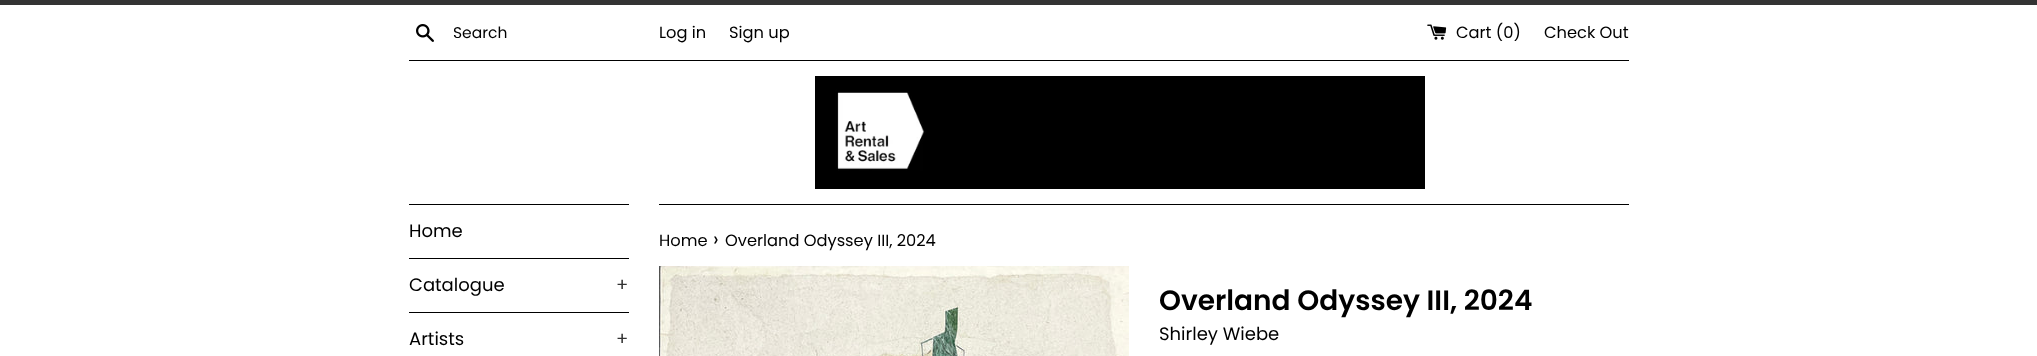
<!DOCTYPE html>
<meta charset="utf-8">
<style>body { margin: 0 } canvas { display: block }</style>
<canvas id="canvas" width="2037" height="356"></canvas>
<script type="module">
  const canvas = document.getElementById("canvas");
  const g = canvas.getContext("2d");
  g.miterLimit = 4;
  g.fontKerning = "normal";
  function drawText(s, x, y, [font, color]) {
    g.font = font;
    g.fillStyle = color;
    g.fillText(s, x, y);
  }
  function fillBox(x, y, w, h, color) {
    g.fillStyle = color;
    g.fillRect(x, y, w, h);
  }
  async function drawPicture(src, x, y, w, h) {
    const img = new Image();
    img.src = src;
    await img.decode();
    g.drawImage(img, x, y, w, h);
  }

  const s1 = ["15.5px Poppins", "#000000"];
  const s2 = ["16.25px Poppins", "#000000"];
  const s3 = ["18px Poppins", "#000000"];
  const s4 = ["18px Poppins", "#333333"];
  const s5 = ["20px Poppins", "#000000"];
  const s6 = ["600 28px Poppins", "#000000"];

  fillBox(0, 0, 2037, 356, "#FFFFFF");
  fillBox(0, 0, 2037, 5, "#333333");
  await drawPicture("pic1.png", 416, 24, 18, 18);
  drawText("Search", 453, 38, s1);
  drawText("Log in", 659, 38, s2);
  drawText("Sign up", 729, 38, s2);
  await drawPicture("pic2.png", 1427, 24, 20, 16);
  drawText("Cart (0)", 1456, 38, s2);
  drawText("Check Out", 1544, 38, s2);
  fillBox(409, 60, 1220, 1, "#000000");
  await drawPicture("pic3.png", 815, 76, 610, 113);
  fillBox(409, 204, 220, 1, "#000000");
  fillBox(409, 258, 220, 1, "#000000");
  drawText("Home", 409, 237, s3);
  fillBox(409, 312, 220, 1, "#000000");
  drawText("Catalogue", 409, 291, s3);
  drawText("+", 616, 291, s4);
  drawText("Artists", 409, 345, s3);
  drawText("+", 616, 345, s4);
  fillBox(659, 204, 970, 1, "#000000");
  drawText("Home", 659, 246, s2);
  drawText("›", 713, 246, s5);
  drawText("Overland Odyssey III, 2024", 725, 246, s2);
  await drawPicture("pic4.png", 659, 266, 470, 90);
  drawText("Overland Odyssey III, 2024", 1159, 310, s6);
  drawText("Shirley Wiebe", 1159, 340, s3);
</script>
